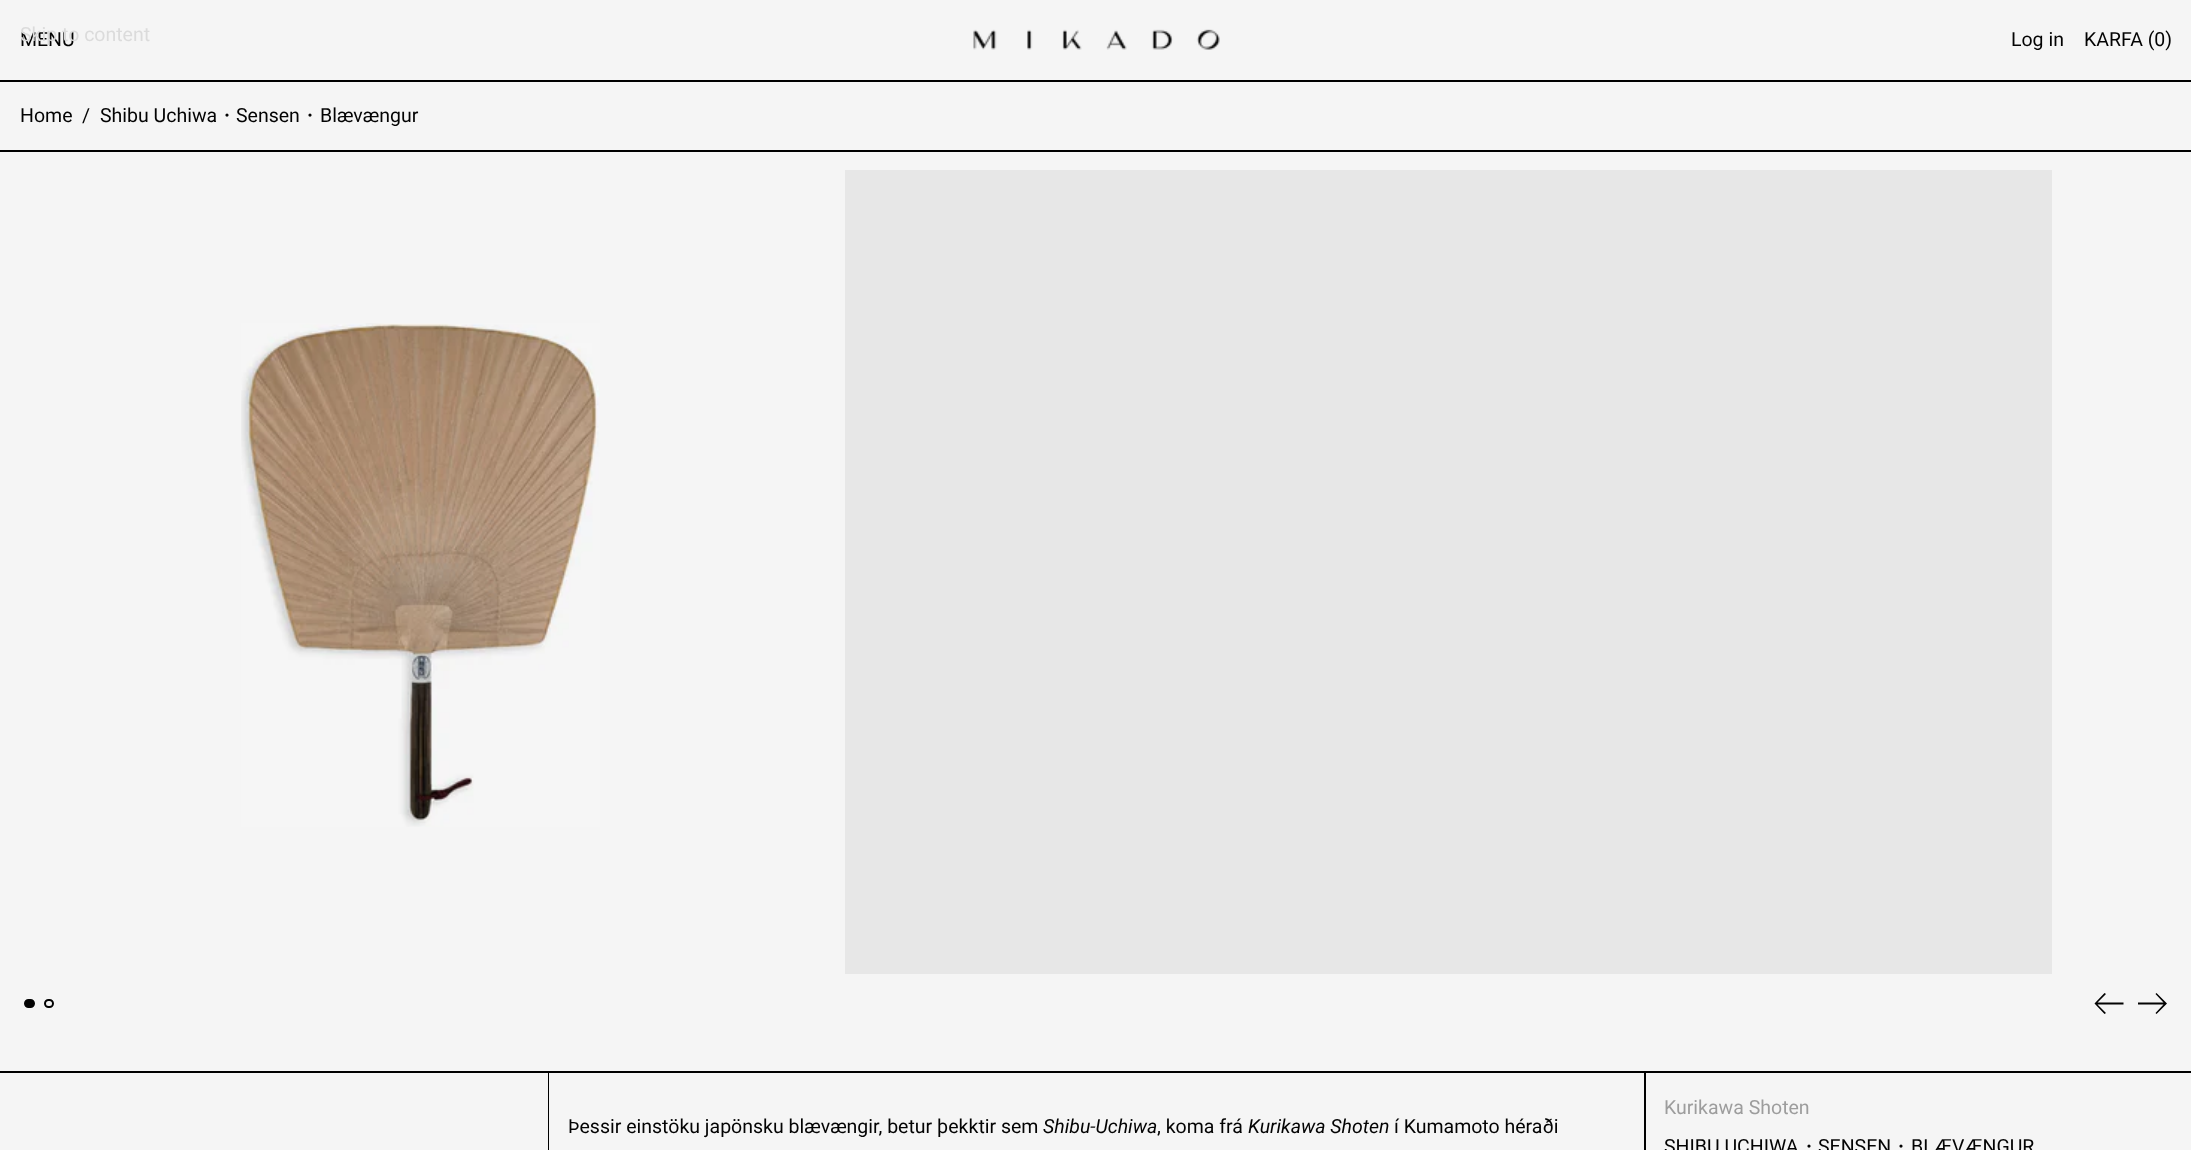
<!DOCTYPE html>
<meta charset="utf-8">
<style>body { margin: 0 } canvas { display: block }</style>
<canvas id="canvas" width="2191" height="1150"></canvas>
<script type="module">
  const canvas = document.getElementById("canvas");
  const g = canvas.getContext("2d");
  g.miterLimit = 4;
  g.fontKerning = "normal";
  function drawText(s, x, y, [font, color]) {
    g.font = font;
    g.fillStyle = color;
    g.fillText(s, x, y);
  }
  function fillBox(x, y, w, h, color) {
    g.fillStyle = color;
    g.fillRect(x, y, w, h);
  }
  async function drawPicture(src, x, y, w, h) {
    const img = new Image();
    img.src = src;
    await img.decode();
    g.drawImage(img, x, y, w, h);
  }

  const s1 = ["19.5px Roboto", "#030303"];
  const s2 = ["19.5px Roboto", "#DBDBDB"];
  const s3 = ["500 19.5px WenQuanYi Zen Hei", "#030303"];
  const s4 = ["italic 19.5px Roboto", "#030303"];
  const s5 = ["19.5px Roboto", "#9D9D9D"];

  fillBox(0, 0, 2191, 1150, "#F5F5F5");
  drawText("MENU", 20, 46, s1);
  drawText("Skip to content", 20, 41, s2);
  fillBox(0, 80, 2191, 2, "#000000");
  await drawPicture("pic1.png", 973, 29, 247, 21);
  drawText("Log in", 2011, 46, s1);
  drawText("KARFA (0)", 2084, 46, s1);
  fillBox(0, 150, 2191, 2, "#000000");
  drawText("Home", 20, 122, s1);
  drawText("/", 82, 122, s1);
  drawText("Shibu Uchiwa", 100, 122, s1);
  drawText("・", 217, 122, s3);
  drawText("Sensen", 236, 122, s1);
  drawText("・", 300, 122, s3);
  drawText("Blævængur", 320, 122, s1);
  await drawPicture("pic2.png", 241, 323, 359, 504);
  fillBox(845, 170, 1207, 804, "#E7E7E7");
  g.fillStyle = "#030303";
  g.beginPath();
  g.roundRect(25, 1000, 9, 7, 3.5);
  g.fill();
  g.strokeStyle = "#030303";
  g.lineWidth = 2;
  g.stroke();
  g.beginPath();
  g.roundRect(45, 1000, 8, 7, 3.5);
  g.stroke();
  g.beginPath();
  g.moveTo(2104.5, 993);
  g.lineTo(2094.5, 1003.5);
  g.lineTo(2104.5, 1014);
  g.lineTo(2106, 1013);
  g.lineTo(2097.5, 1004.5);
  g.lineTo(2123.5, 1004.5);
  g.lineTo(2123.5, 1002.5);
  g.lineTo(2097.5, 1002.5);
  g.lineTo(2106, 994);
  g.closePath();
  g.fill();
  g.beginPath();
  g.moveTo(2156.5, 993);
  g.lineTo(2167, 1003.5);
  g.lineTo(2156.5, 1014);
  g.lineTo(2155.5, 1013);
  g.lineTo(2163.5, 1004.5);
  g.lineTo(2138, 1004.5);
  g.lineTo(2138, 1002.5);
  g.lineTo(2163.5, 1002.5);
  g.lineTo(2155.5, 994);
  g.closePath();
  g.fill();
  fillBox(548, 1073, 1098, 77, "#000000");
  fillBox(0, 1071, 2191, 2, "#000000");
  fillBox(549, 1073, 1095, 77, "#F5F5F5");
  drawText("Þessir einstöku japönsku blævængir, betur þekktir sem", 568, 1133, s1);
  drawText("Shibu-Uchiwa", 1043, 1133, s4);
  drawText(", koma frá", 1157, 1133, s1);
  drawText("Kurikawa Shoten", 1248, 1133, s4);
  drawText("í Kumamoto héraði", 1394, 1133, s1);
  drawText("Kurikawa Shoten", 1664, 1114, s5);
  drawText("SHIBU UCHIWA", 1664, 1153, s1);
  drawText("・", 1799, 1153, s3);
  drawText("SENSEN", 1818, 1153, s1);
  drawText("・", 1891, 1153, s3);
  drawText("BLÆVÆNGUR", 1911, 1153, s1);
</script>
